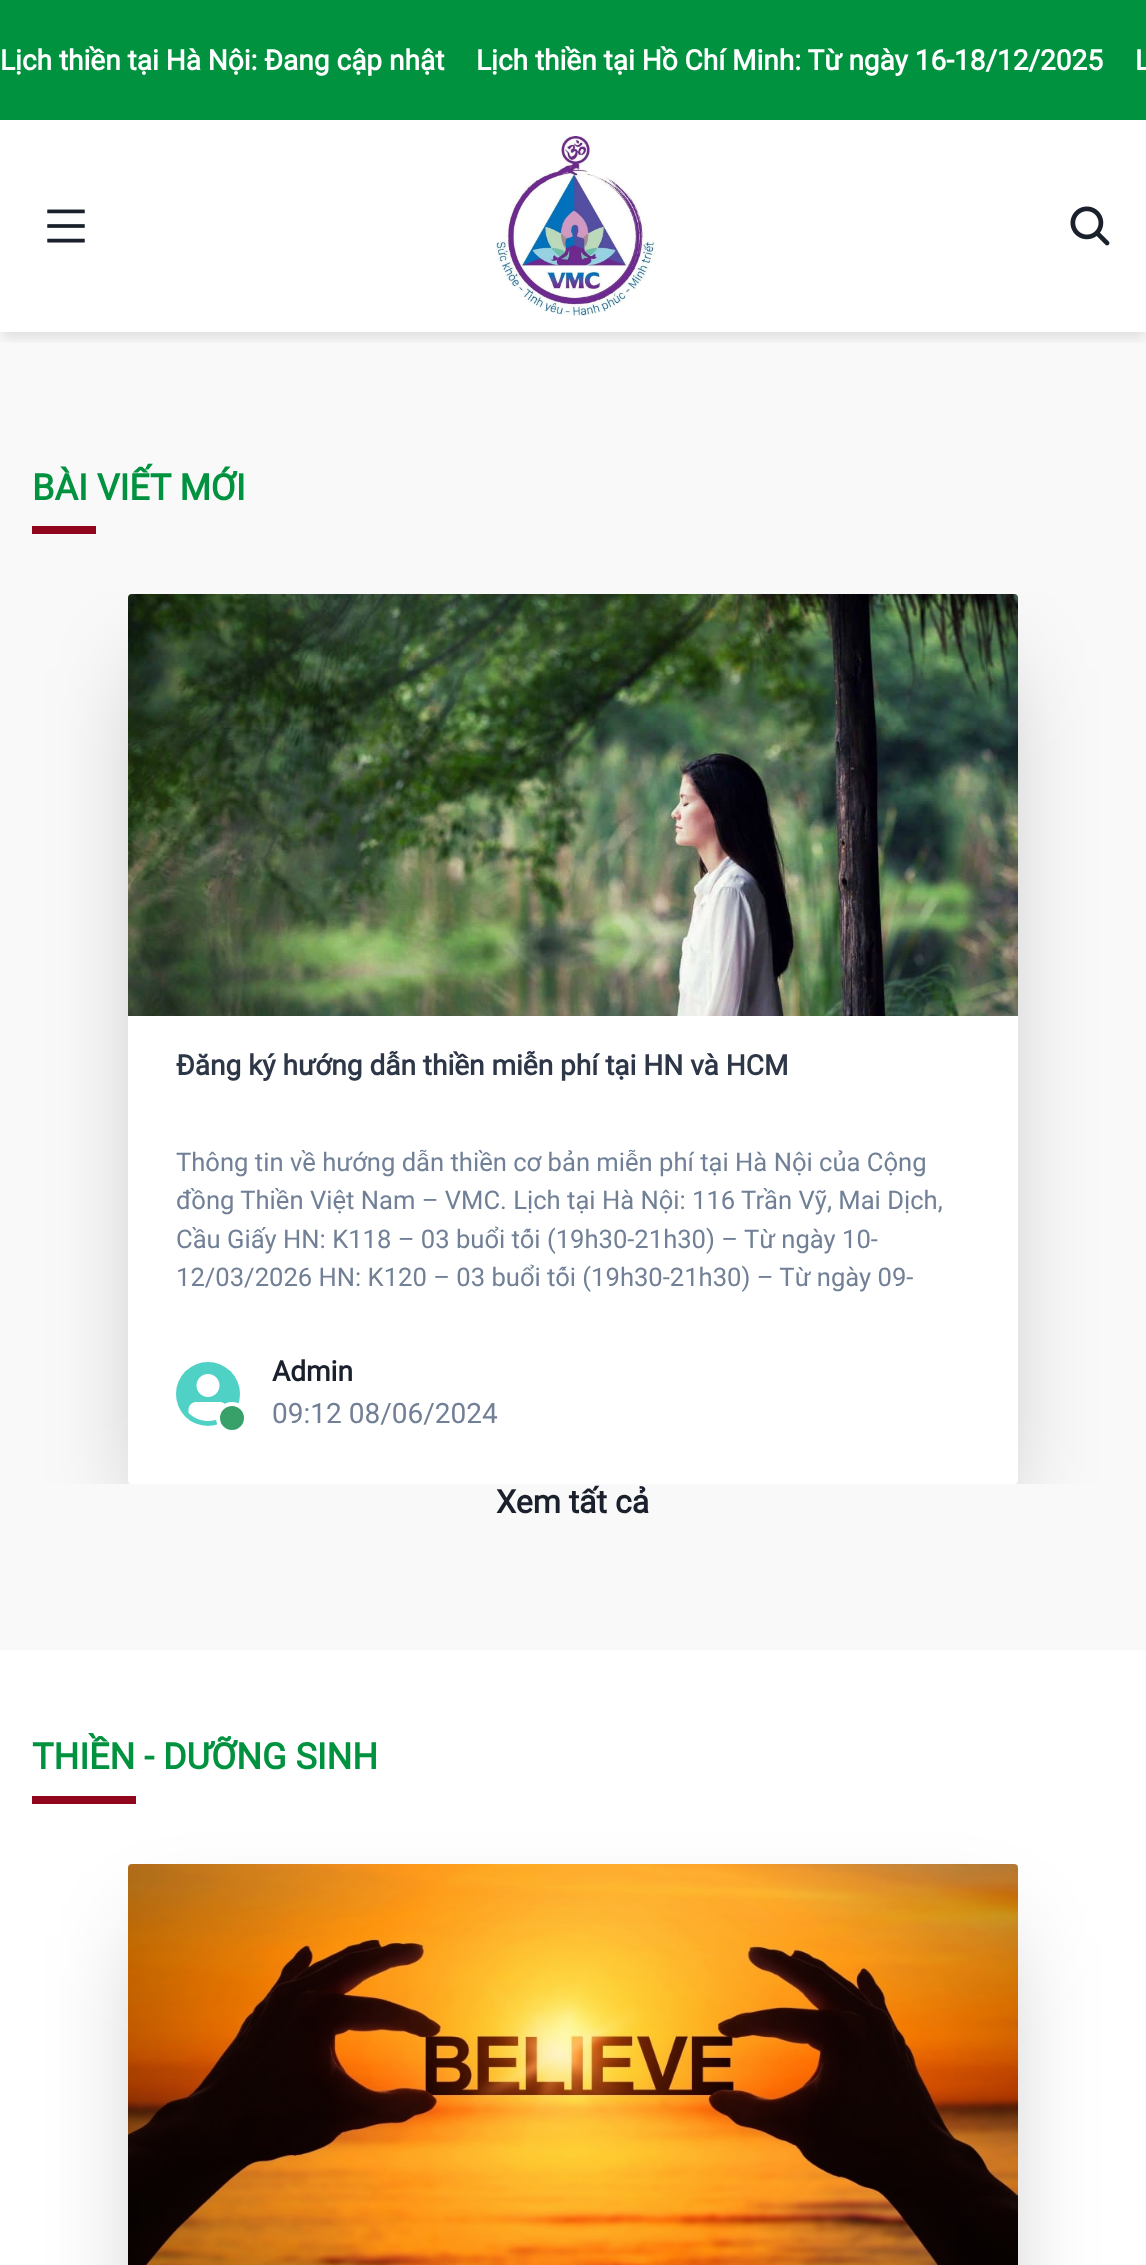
<!DOCTYPE html>
<meta charset="utf-8">
<style>body { margin: 0 } canvas { display: block }</style>
<canvas id="canvas" width="1146" height="2265"></canvas>
<script type="module">
  const canvas = document.getElementById("canvas");
  const g = canvas.getContext("2d");
  g.miterLimit = 4;
  g.fontKerning = "normal";
  function drawText(s, x, y, [font, color]) {
    g.font = font;
    g.fillStyle = color;
    g.fillText(s, x, y);
  }
  function fillBox(x, y, w, h, color) {
    g.fillStyle = color;
    g.fillRect(x, y, w, h);
  }
  function fillRounded(x, y, w, h, r, color) {
    g.fillStyle = color;
    g.beginPath();
    g.roundRect(x, y, w, h, r);
    g.fill();
  }
  async function drawPicture(src, x, y, w, h) {
    const img = new Image();
    img.src = src;
    await img.decode();
    g.drawImage(img, x, y, w, h);
  }

  const s1 = ["bold 28px Roboto", "#FFFFFF"];
  const s2 = ["bold 36px Roboto", "#00923F"];
  const s3 = ["bold 28px Roboto", "#2D3748"];
  const s4 = ["25.6px Roboto", "#718096"];
  const s5 = ["bold 28px Roboto", "#1A202C"];
  const s6 = ["28px Roboto", "#718096"];
  const s7 = ["bold 32px Roboto", "#1A202C"];

  fillBox(0, 0, 1146, 2265, "#FFFFFF");
  fillBox(0, 0, 1146, 120, "#00923F");
  drawText("Lịch thiền tại Hà Nội: Đang cập nhật", 0, 70, s1);
  drawText("Lịch thiền tại Hồ Chí Minh: Từ ngày 16-18/12/2025", 476, 70, s1);
  drawText("L", 1135, 70, s1);
  fillBox(0, 332, 1146, 1318, "#F9F9F9");
  g.save();
  g.beginPath();
  g.rect(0, 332, 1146, 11);
  g.clip();
  g.fillStyle = "rgba(0, 0, 0, 0.1)";
  g.filter = "blur(6px)";
  g.beginPath();
  g.rect(2, 130, 1142, 208);
  g.fill();
  g.filter = "none";
  g.restore();
  await drawPicture("pic1.png", 47, 209, 38, 34);
  await drawPicture("pic2.png", 496, 136, 161, 180);
  await drawPicture("pic3.png", 1070, 206, 40, 40);
  drawText("BÀI VIẾT MỚI", 32, 500, s2);
  fillBox(32, 526, 64, 8, "#91061D");
  g.save();
  g.beginPath();
  g.rect(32, 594, 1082, 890);
  g.clip();
  g.fillStyle = "rgba(0, 0, 0, 0.25)";
  g.filter = "blur(50px)";
  g.beginPath();
  g.rect(152, 668, 842, 842);
  g.fill();
  g.filter = "none";
  g.restore();
  fillRounded(128, 594, 890, 890, 4, "#FFFFFF");
  await drawPicture("pic4.png", 128, 594, 890, 422);
  drawText("Đăng ký hướng dẫn thiền miễn phí tại HN và HCM", 176, 1075, s3);
  drawText("Thông tin về hướng dẫn thiền cơ bản miễn phí tại Hà Nội của Cộng", 176, 1171, s4);
  drawText("đồng Thiền Việt Nam – VMC. Lịch tại Hà Nội: 116 Trần Vỹ, Mai Dịch,", 176, 1209, s4);
  drawText("Cầu Giấy HN: K118 – 03 buổi tối (19h30-21h30) – Từ ngày 10-", 176, 1248, s4);
  drawText("12/03/2026 HN: K120 – 03 buổi tối (19h30-21h30) – Từ ngày 09-", 176, 1286, s4);
  g.fillStyle = "#4FD1C5";
  g.beginPath();
  g.arc(208, 1394, 32, 0, Math.PI * 2);
  g.fill();
  await drawPicture("pic5.png", 188, 1374, 37, 47);
  g.fillStyle = "#38A169";
  g.beginPath();
  g.arc(232, 1418, 14, 0, Math.PI * 2);
  g.fill();
  g.strokeStyle = "#FFFFFF";
  g.lineWidth = 4;
  g.stroke();
  drawText("Admin", 272, 1381, s5);
  drawText("09:12 08/06/2024", 272, 1423, s6);
  drawText("Xem tất cả", 496, 1513, s7);
  drawText("THIỀN - DƯỠNG SINH", 32, 1769, s2);
  fillBox(32, 1796, 104, 8, "#91061D");
  g.fillStyle = "rgba(0, 0, 0, 0.25)";
  g.filter = "blur(50px)";
  g.beginPath();
  g.rect(152, 1938, 842, 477);
  g.fill();
  g.filter = "none";
  await drawPicture("pic6.png", 128, 1864, 890, 401);
</script>
